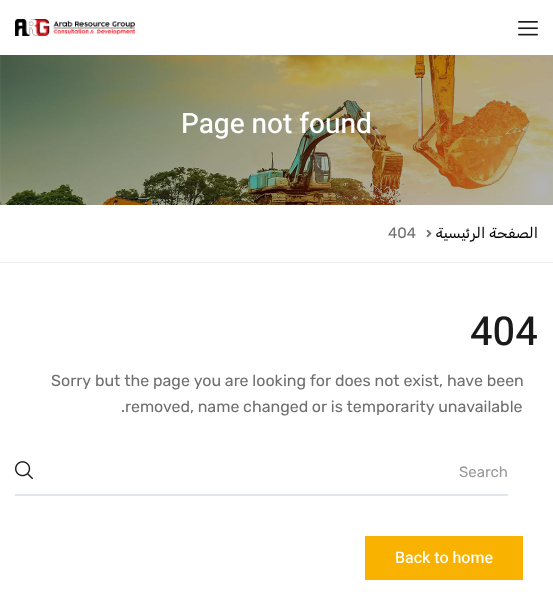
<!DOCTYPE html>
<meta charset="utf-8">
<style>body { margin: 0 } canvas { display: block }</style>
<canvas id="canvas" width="553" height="608"></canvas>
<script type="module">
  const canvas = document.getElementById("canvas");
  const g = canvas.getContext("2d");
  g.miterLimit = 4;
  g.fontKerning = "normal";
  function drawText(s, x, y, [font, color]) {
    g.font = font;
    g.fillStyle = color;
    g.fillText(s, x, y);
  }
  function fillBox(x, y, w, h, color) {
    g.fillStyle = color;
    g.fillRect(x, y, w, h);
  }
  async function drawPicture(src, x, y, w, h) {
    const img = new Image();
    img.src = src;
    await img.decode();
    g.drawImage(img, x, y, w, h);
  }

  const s1 = ["500 28px Heebo", "#FFFFFF"];
  const s2 = ["15px Rubik", "#6F6F6F"];
  const s3 = ["15px Rubik", "#000000"];
  const s4 = ["500 40px Heebo", "#1A1A1A"];
  const s5 = ["16px Rubik", "#6F6F6F"];
  const s6 = ["15px Rubik", "#999999"];
  const s7 = ["500 16px Heebo", "#FFFFFF"];

  fillBox(0, 0, 553, 608, "#FFFFFF");
  await drawPicture("pic1.png", 15, 19, 120, 17);
  await drawPicture("pic2.png", 518, 21, 20, 15);
  await drawPicture("pic3.png", 0, 55, 553, 150);
  drawText("Page not found", 181, 133, s1);
  fillBox(0, 262, 553, 1, "#EFEFEF");
  drawText("404", 388, 238, s2);
  await drawPicture("pic4.png", 426, 229, 6, 9);
  g.direction = "rtl";
  drawText("الصفحة الرئيسية", 538, 238, s3);
  g.direction = "ltr";
  drawText("404", 470, 345, s4);
  g.wordSpacing = "-0.1px";
  drawText("Sorry but the page you are looking for does not exist, have been", 51, 386, s5);
  g.wordSpacing = "0px";
  drawText(".", 121, 412, s5);
  g.wordSpacing = "-0.25px";
  drawText("removed, name changed or is temporarity unavailable", 125, 412, s5);
  await drawPicture("pic5.png", 15, 461, 18, 19);
  fillBox(15, 494, 493, 2, "#E1E6EB");
  g.wordSpacing = "0px";
  drawText("Search", 459, 477, s6);
  fillBox(365, 536, 158, 44, "#F9B200");
  drawText("Back to home", 395, 563, s7);
</script>
